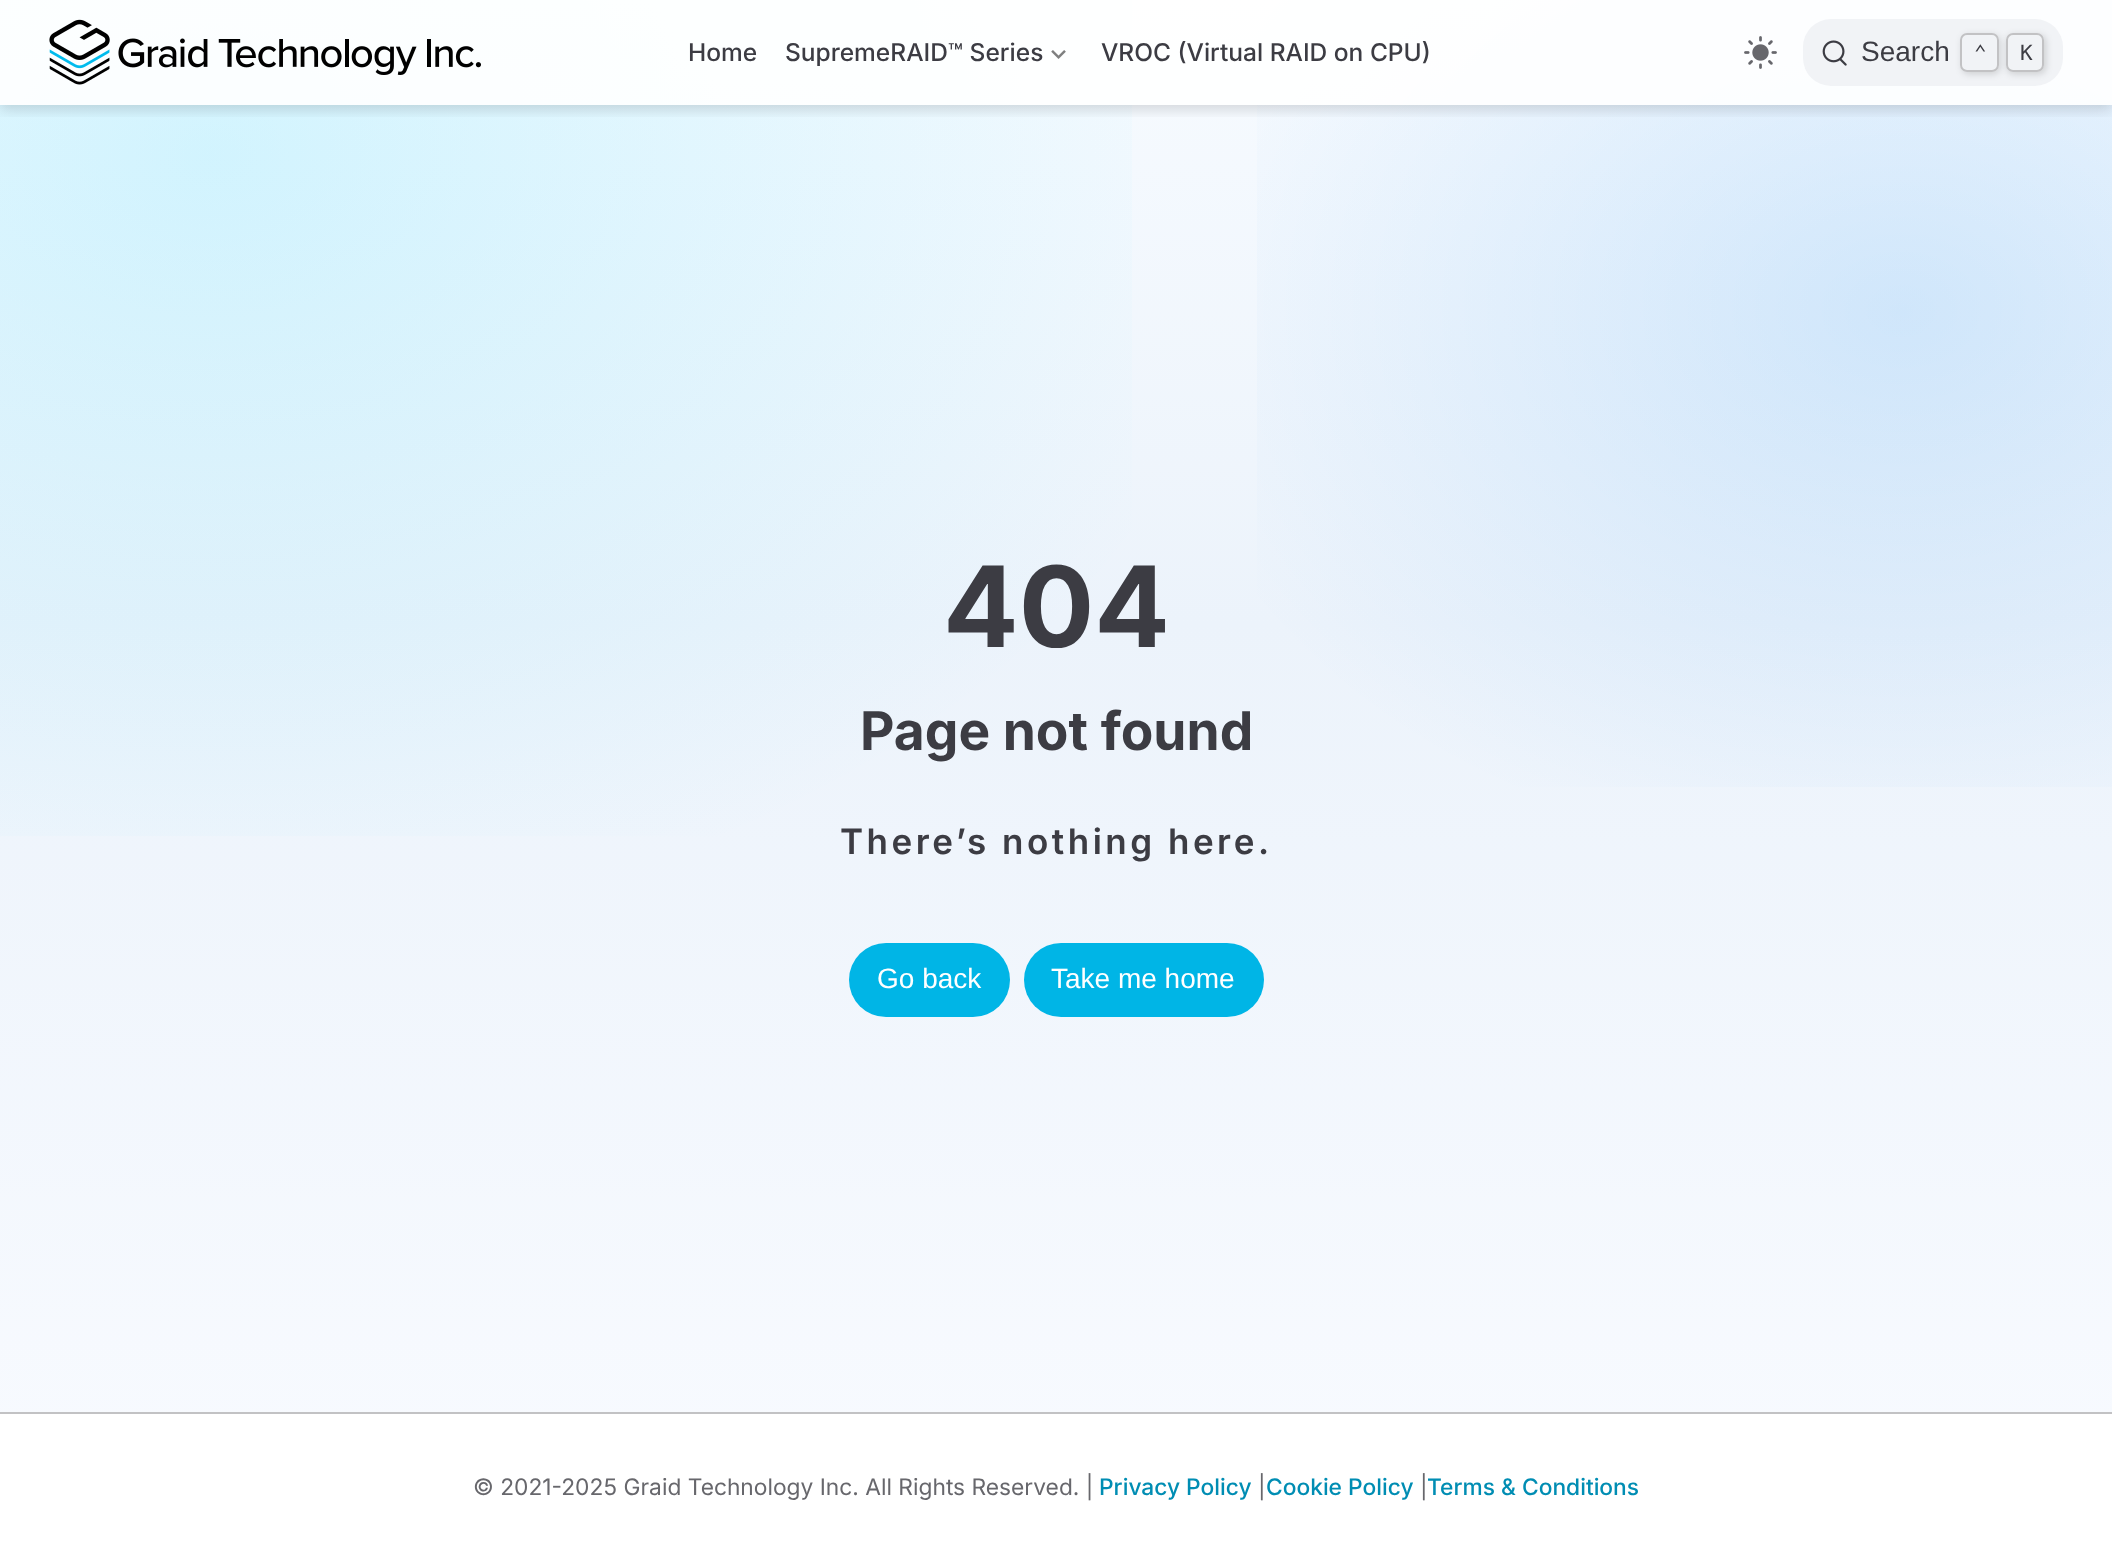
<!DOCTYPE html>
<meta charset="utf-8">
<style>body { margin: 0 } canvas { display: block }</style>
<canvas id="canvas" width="2112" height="1558"></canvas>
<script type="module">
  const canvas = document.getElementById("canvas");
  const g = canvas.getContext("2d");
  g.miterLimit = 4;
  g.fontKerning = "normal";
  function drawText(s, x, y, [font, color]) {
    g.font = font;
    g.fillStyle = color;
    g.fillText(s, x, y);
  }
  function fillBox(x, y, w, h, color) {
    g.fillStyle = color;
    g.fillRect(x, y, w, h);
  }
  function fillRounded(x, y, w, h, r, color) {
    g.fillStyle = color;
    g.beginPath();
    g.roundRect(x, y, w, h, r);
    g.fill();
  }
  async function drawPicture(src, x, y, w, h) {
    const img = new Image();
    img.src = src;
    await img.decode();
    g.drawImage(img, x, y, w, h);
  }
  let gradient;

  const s1 = ["500 24.5px Inter", "#3C3C43"];
  const s2 = ["28px Liberation Sans", "#3C3C43"];
  const s3 = ["21px DejaVu Sans Mono", "#3C3C43"];
  const s4 = ["bold 112px Inter", "#3C3C43"];
  const s5 = ["bold 53.25px Inter", "#3C3C43"];
  const s6 = ["600 35px Inter", "#3C3C43"];
  const s7 = ["28px Liberation Sans", "#FFFFFF"];
  const s8 = ["22.75px Inter", "#67676C"];
  const s9 = ["500 22.75px Inter", "#008DB3"];

  fillBox(0, 0, 2112, 1558, "#FFFFFF");
  gradient = g.createLinearGradient(1056, 0, 1056, 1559);
  gradient.addColorStop(0, "#F7FBFF");
  gradient.addColorStop(0.4, "#ECF3FB");
  gradient.addColorStop(1, "#F9FBFF");
  g.fillStyle = gradient;
  g.fillRect(0, 0, 2112, 1412);
  gradient = g.createRadialGradient(1901, 422.84, 0, 1901, 422.84, 1690);
  gradient.addColorStop(0, "rgba(0, 127, 237, 0.14)");
  gradient.addColorStop(0.45, "rgba(0, 127, 237, 0)");
  g.fillStyle = gradient;
  g.beginPath();
  g.rect(1257, 0, 855, 787);
  g.save();
  g.clip();
  g.scale(1, 1247 / 1690);
  g.fillRect(0, 0, 2112, 2112);
  g.restore();
  gradient = g.createRadialGradient(211, 211.36, 0, 211, 211.36, 2535);
  gradient.addColorStop(0, "rgba(29, 215, 255, 0.16)");
  gradient.addColorStop(0.42, "rgba(29, 215, 255, 0)");
  g.fillStyle = gradient;
  g.beginPath();
  g.rect(0, 0, 1132, 836);
  g.save();
  g.clip();
  g.scale(1, 1871 / 2535);
  g.fillRect(0, 0, 2112, 2111);
  g.restore();
  g.save();
  g.beginPath();
  g.rect(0, 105, 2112, 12);
  g.clip();
  g.fillStyle = "rgba(0, 0, 0, 0.15)";
  g.filter = "blur(7px)";
  g.beginPath();
  g.rect(0, 4, 2112, 105);
  g.fill();
  g.filter = "none";
  g.restore();
  fillBox(0, 0, 2112, 105, "rgba(255, 255, 255, 0.9)");
  await drawPicture("pic1.png", 49, 19, 432, 66);
  drawText("Home", 688, 61, s1);
  drawText("SupremeRAID™ Series", 785, 61, s1);
  await drawPicture("pic2.png", 1051, 50, 15, 9);
  drawText("VROC (Virtual RAID on CPU)", 1101, 61, s1);
  await drawPicture("pic3.png", 1744, 36, 33, 33);
  fillRounded(1803, 19, 260, 67, 28, "#F1F3F6");
  await drawPicture("pic4.png", 1822, 40, 25, 26);
  drawText("Search", 1861, 61, s2);
  g.save();
  g.beginPath();
  g.moveTo(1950, 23);
  g.lineTo(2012, 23);
  g.lineTo(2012, 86);
  g.lineTo(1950, 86);
  g.closePath();
  g.moveTo(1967, 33);
  g.lineTo(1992, 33);
  g.bezierCurveTo(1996, 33, 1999, 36, 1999, 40);
  g.lineTo(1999, 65);
  g.bezierCurveTo(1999, 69, 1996, 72, 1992, 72);
  g.lineTo(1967, 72);
  g.bezierCurveTo(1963, 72, 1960, 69, 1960, 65);
  g.lineTo(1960, 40);
  g.bezierCurveTo(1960, 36, 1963, 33, 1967, 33);
  g.closePath();
  g.clip("evenodd");
  g.fillStyle = "rgba(0, 0, 0, 0.15)";
  g.filter = "blur(3.5px)";
  g.beginPath();
  g.roundRect(1962, 35, 38, 39, 7);
  g.fill();
  g.filter = "none";
  g.restore();
  g.beginPath();
  g.roundRect(1961, 34, 37, 37, 6);
  g.strokeStyle = "#C2C2C4";
  g.lineWidth = 2;
  g.stroke();
  g.letterSpacing = "-2px";
  drawText("⌃", 1974, 60, s3);
  g.save();
  g.beginPath();
  g.moveTo(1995, 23);
  g.lineTo(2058, 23);
  g.lineTo(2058, 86);
  g.lineTo(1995, 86);
  g.closePath();
  g.moveTo(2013, 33);
  g.lineTo(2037, 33);
  g.bezierCurveTo(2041, 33, 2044, 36, 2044, 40);
  g.lineTo(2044, 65);
  g.bezierCurveTo(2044, 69, 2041, 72, 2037, 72);
  g.lineTo(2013, 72);
  g.bezierCurveTo(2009, 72, 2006, 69, 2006, 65);
  g.lineTo(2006, 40);
  g.bezierCurveTo(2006, 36, 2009, 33, 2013, 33);
  g.closePath();
  g.clip("evenodd");
  g.fillStyle = "rgba(0, 0, 0, 0.15)";
  g.filter = "blur(3.5px)";
  g.beginPath();
  g.roundRect(2007, 35, 39, 39, 7);
  g.fill();
  g.filter = "none";
  g.restore();
  g.beginPath();
  g.roundRect(2007, 34, 36, 37, 6);
  g.stroke();
  drawText("K", 2020, 60, s3);
  g.letterSpacing = "0px";
  drawText("404", 943, 647, s4);
  drawText("Page not found", 860, 750, s5);
  g.letterSpacing = "3.5px";
  drawText("There’s nothing here.", 840, 854, s6);
  fillRounded(849, 943, 161, 74, 37, "#00B5E6");
  g.letterSpacing = "0px";
  drawText("Go back", 877, 988, s7);
  fillRounded(1024, 943, 240, 74, 37, "#00B5E6");
  drawText("Take me home", 1051, 988, s7);
  fillBox(0, 1412, 2112, 2, "#C2C2C4");
  drawText("© 2021-2025 Graid Technology Inc. All Rights Reserved. |", 473, 1495, s8);
  drawText("Privacy Policy", 1099, 1495, s9);
  drawText("|", 1258, 1495, s8);
  drawText("Cookie Policy", 1266, 1495, s9);
  drawText("|", 1420, 1495, s8);
  drawText("Terms & Conditions", 1427, 1495, s9);
</script>
